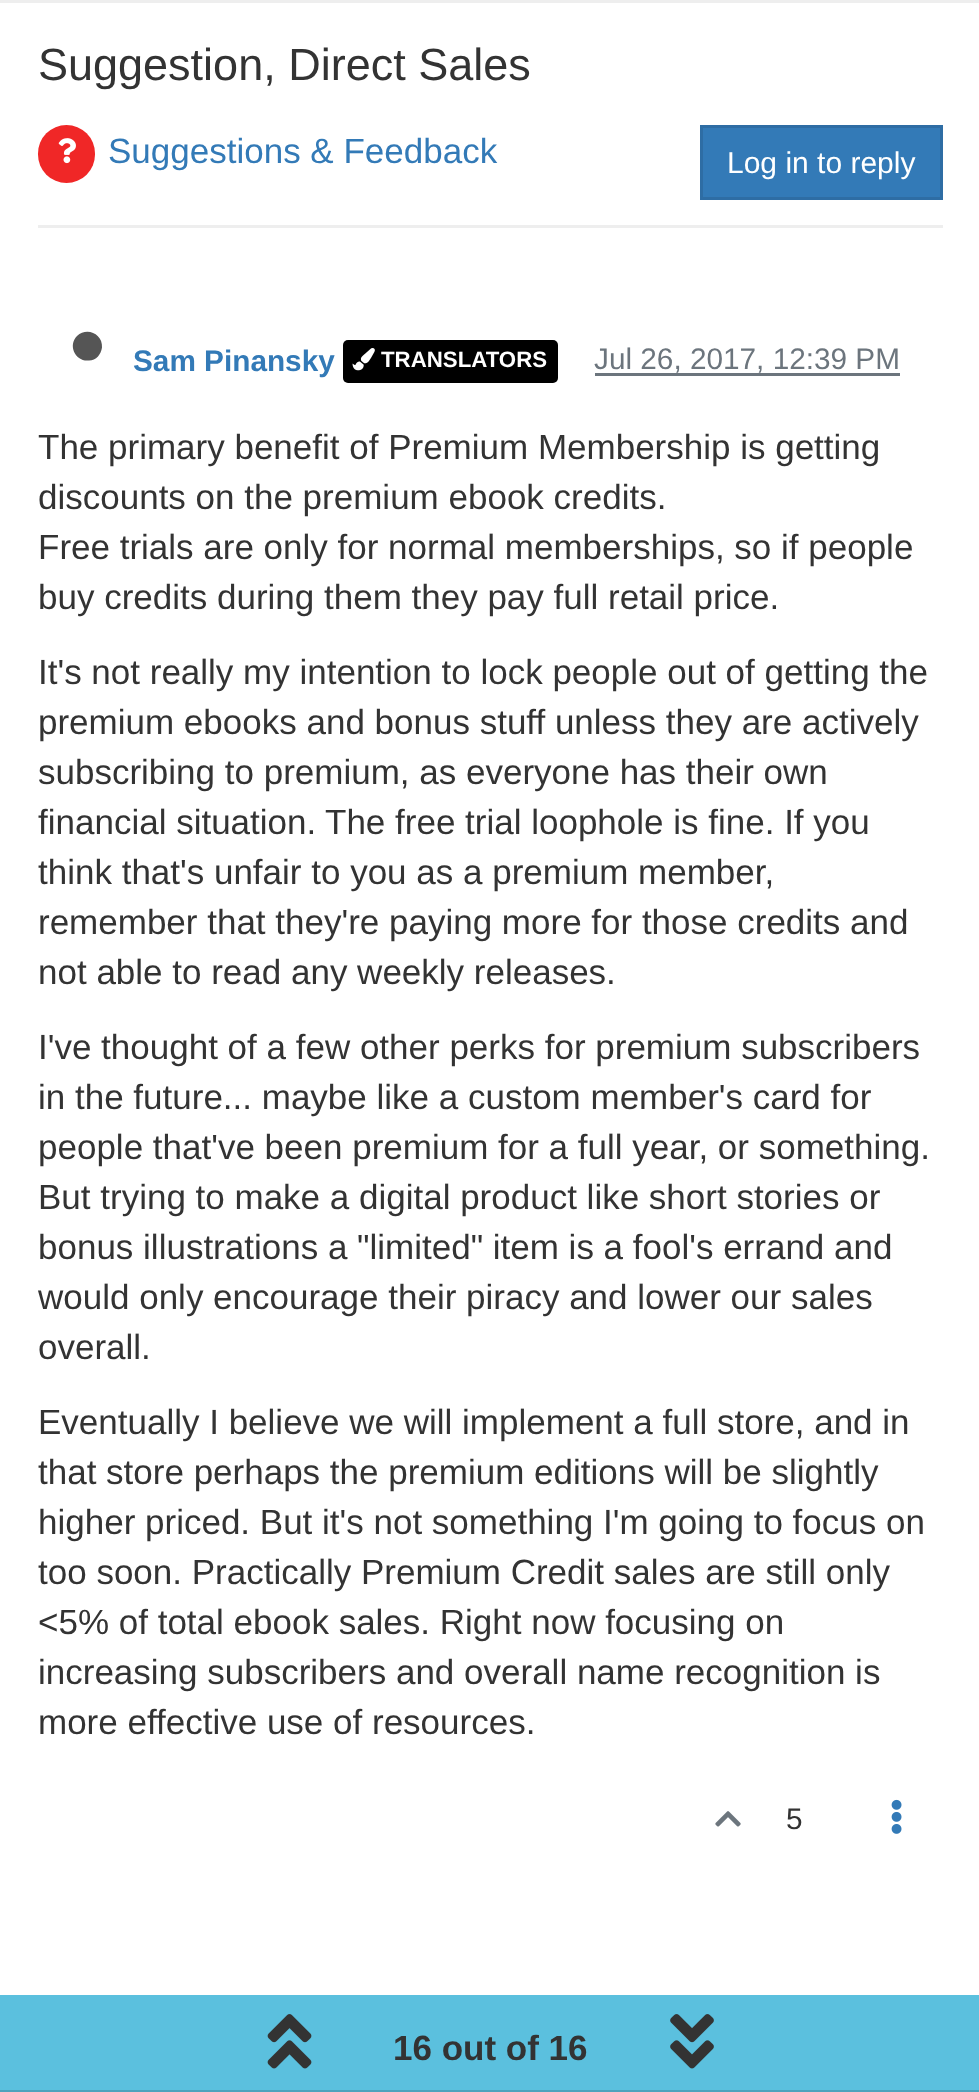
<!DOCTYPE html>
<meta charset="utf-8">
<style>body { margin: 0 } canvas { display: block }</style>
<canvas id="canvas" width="979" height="2092"></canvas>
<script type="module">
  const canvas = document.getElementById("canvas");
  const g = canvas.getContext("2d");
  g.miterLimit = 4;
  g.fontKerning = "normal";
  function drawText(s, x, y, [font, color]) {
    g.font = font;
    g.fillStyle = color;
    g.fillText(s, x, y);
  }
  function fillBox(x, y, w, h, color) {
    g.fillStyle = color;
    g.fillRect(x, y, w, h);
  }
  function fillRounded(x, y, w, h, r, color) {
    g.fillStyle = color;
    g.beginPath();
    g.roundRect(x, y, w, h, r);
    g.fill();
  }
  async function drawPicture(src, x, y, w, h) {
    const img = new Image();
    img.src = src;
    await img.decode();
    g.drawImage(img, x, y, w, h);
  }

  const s1 = ["45px Liberation Sans", "#333333"];
  const s2 = ["35px Liberation Sans", "#337AB7"];
  const s3 = ["30px Liberation Sans", "#FFFFFF"];
  const s4 = ["bold 29.75px Liberation Sans", "#337AB7"];
  const s5 = ["bold 22.25px Liberation Sans", "#FFFFFF"];
  const s6 = ["29.75px Liberation Sans", "#6C757D"];
  const s7 = ["35px Liberation Sans", "#333333"];
  const s8 = ["29.75px Liberation Sans", "#333333"];
  const s9 = ["bold 35px Liberation Sans", "#333333"];

  fillBox(0, 0, 979, 2092, "#FFFFFF");
  fillBox(0, 0, 979, 3, "#EEEEEE");
  drawText("Suggestion, Direct Sales", 38, 80, s1);
  fillBox(38, 225, 905, 3, "#EEEEEE");
  fillRounded(38, 125, 57, 58, 28.5, "#F02727");
  await drawPicture("pic1.png", 58, 138, 18, 26);
  drawText("Suggestions & Feedback", 108, 163, s2);
  g.beginPath();
  g.rect(701.5, 126.5, 240, 72);
  g.fill();
  g.strokeStyle = "#2E6DA4";
  g.lineWidth = 3;
  g.stroke();
  drawText("Log in to reply", 727, 173, s3);
  g.fillStyle = "#555555";
  g.beginPath();
  g.moveTo(77, 336);
  g.bezierCurveTo(87, 326.5, 103, 334, 102, 347.5);
  g.bezierCurveTo(101.5, 351, 100, 354, 98, 356.5);
  g.bezierCurveTo(95.5, 359, 92.5, 360.5, 89, 360.5);
  g.bezierCurveTo(75.5, 362, 67.5, 345.5, 77, 336);
  g.closePath();
  g.fill();
  drawText("Sam Pinansky", 133, 371, s4);
  fillRounded(343, 340, 215, 43, 5, "#000000");
  await drawPicture("pic2.png", 352, 348, 23, 23);
  drawText("TRANSLATORS", 381, 367, s5);
  drawText("Jul 26, 2017, 12:39 PM", 594, 369, s6);
  fillBox(595, 373, 305, 3, "#6C757D");
  drawText("The primary benefit of Premium Membership is getting", 38, 459, s7);
  drawText("discounts on the premium ebook credits.", 38, 509, s7);
  drawText("Free trials are only for normal memberships, so if people", 38, 559, s7);
  drawText("buy credits during them they pay full retail price.", 38, 609, s7);
  drawText("It's not really my intention to lock people out of getting the", 38, 684, s7);
  drawText("premium ebooks and bonus stuff unless they are actively", 38, 734, s7);
  drawText("subscribing to premium, as everyone has their own", 38, 784, s7);
  drawText("financial situation.", 38, 834, s7);
  drawText("The free trial loophole is fine. If you", 325, 834, s7);
  drawText("think that's unfair to you as a premium member,", 38, 884, s7);
  drawText("remember that they're paying more for those credits and", 38, 934, s7);
  drawText("not able to read any weekly releases.", 38, 984, s7);
  drawText("I've thought of a few other perks for premium subscribers", 38, 1059, s7);
  drawText("in the future... maybe like a custom member's card for", 38, 1109, s7);
  drawText("people that've been premium for a full year, or something.", 38, 1159, s7);
  drawText("But trying to make a digital product like short stories or", 38, 1209, s7);
  drawText("bonus illustrations a \"limited\" item is a fool's errand and", 38, 1259, s7);
  drawText("would only encourage their piracy and lower our sales", 38, 1309, s7);
  drawText("overall.", 38, 1359, s7);
  drawText("Eventually I believe we will implement a full store, and in", 38, 1434, s7);
  drawText("that store perhaps the premium editions will be slightly", 38, 1484, s7);
  drawText("higher priced. But it's not something I'm going to focus on", 38, 1534, s7);
  drawText("too soon. Practically Premium Credit sales are still only", 38, 1584, s7);
  drawText("<5% of total ebook sales. Right now focusing on", 38, 1634, s7);
  drawText("increasing subscribers and overall name recognition is", 38, 1684, s7);
  drawText("more effective use of resources.", 38, 1734, s7);
  await drawPicture("pic3.png", 715, 1811, 26, 16);
  drawText("5", 786, 1829, s8);
  await drawPicture("pic4.png", 891, 1799, 11, 35);
  fillBox(0, 1995, 979, 95, "#5BC0DE");
  fillBox(0, 2090, 979, 2, "#4DA3BD");
  await drawPicture("pic5.png", 267, 2014, 45, 55);
  drawText("16 out of 16", 393, 2060, s9);
  await drawPicture("pic6.png", 670, 2014, 44, 55);
</script>
